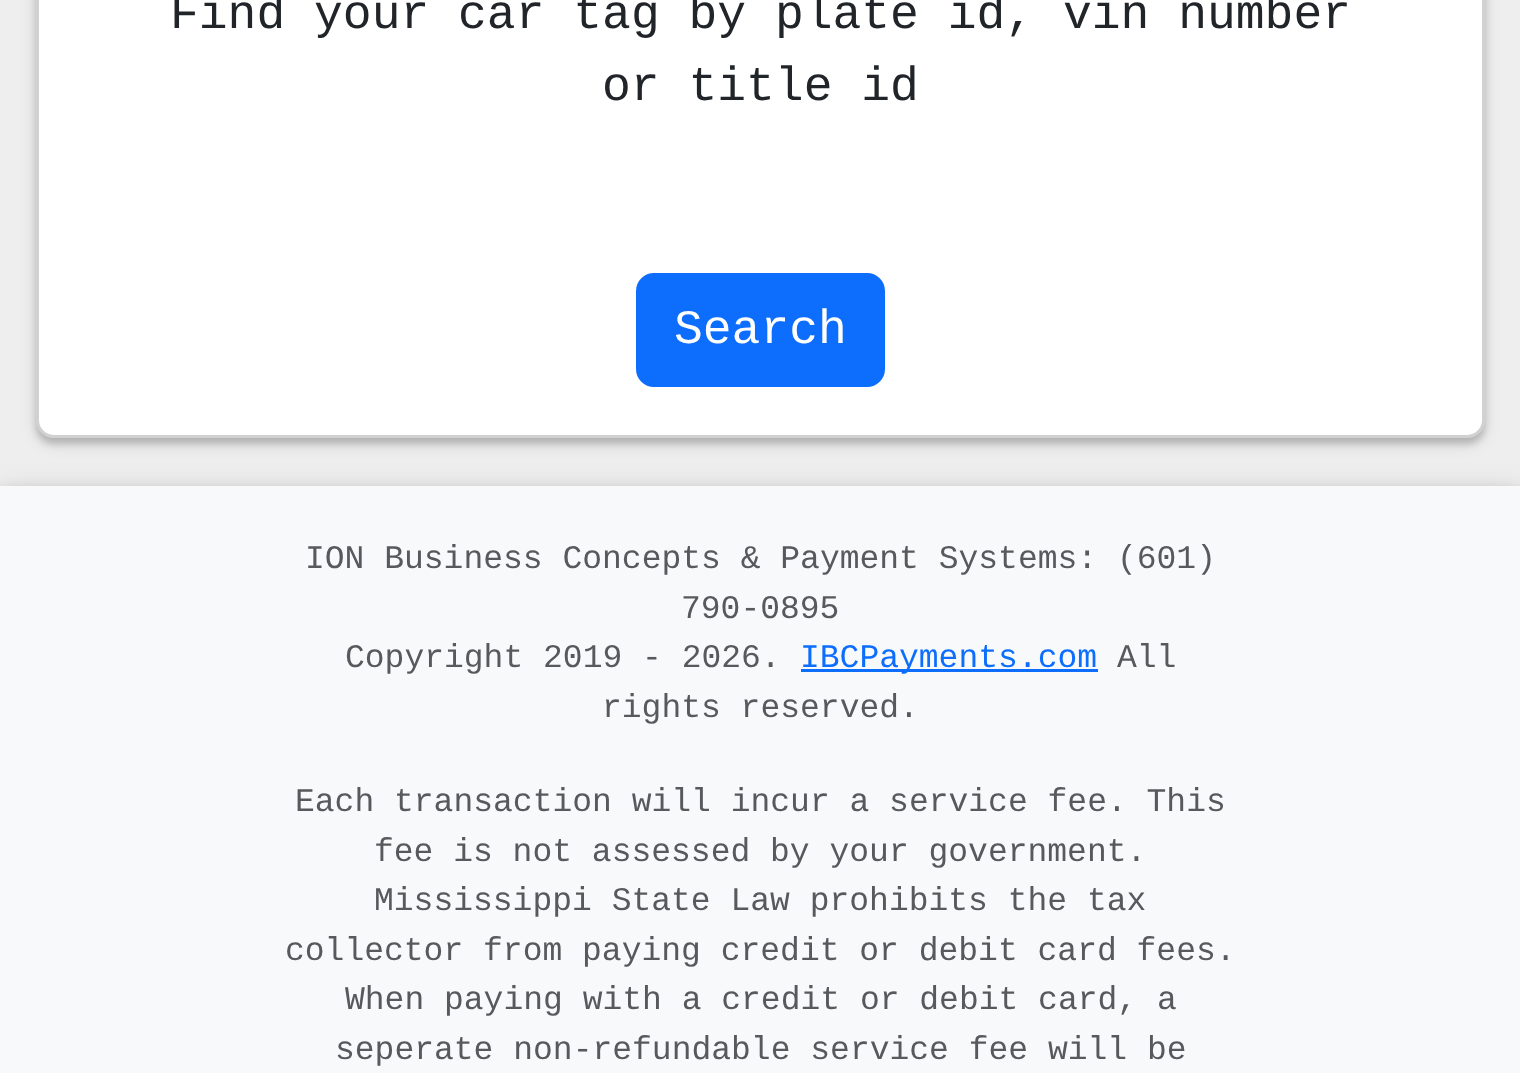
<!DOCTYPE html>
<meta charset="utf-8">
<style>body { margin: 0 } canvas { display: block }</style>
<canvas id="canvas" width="1520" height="1073"></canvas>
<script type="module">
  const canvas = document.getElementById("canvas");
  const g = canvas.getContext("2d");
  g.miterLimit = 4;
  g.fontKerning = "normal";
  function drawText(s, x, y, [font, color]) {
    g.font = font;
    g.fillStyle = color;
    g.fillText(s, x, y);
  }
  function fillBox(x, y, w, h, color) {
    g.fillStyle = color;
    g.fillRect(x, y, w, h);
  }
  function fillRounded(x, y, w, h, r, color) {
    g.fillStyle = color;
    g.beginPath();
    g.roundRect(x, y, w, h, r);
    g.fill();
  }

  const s1 = ["48px Liberation Mono", "#212529"];
  const s2 = ["48px Liberation Mono", "#FFFFFF"];
  const s3 = ["33px Liberation Mono", "#575A5D"];
  const s4 = ["33px Liberation Mono", "#0D6EFD"];

  fillBox(0, 0, 1520, 1073, "#EEEEEE");
  g.fillStyle = "rgba(0, 0, 0, 0.12)";
  g.filter = "blur(7.5px)";
  g.beginPath();
  g.roundRect(36, -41, 1449, 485, 18);
  g.fill();
  g.filter = "none";
  g.fillStyle = "rgba(0, 0, 0, 0.16)";
  g.filter = "blur(3px)";
  g.beginPath();
  g.roundRect(36, -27, 1449, 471, 18);
  g.fill();
  g.filter = "none";
  fillRounded(36, -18, 1449, 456, 18, "#FFFFFF");
  g.beginPath();
  g.roundRect(37.5, -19.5, 1446, 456, 16.5);
  g.strokeStyle = "rgba(0, 0, 0, 0.18)";
  g.lineWidth = 3;
  g.stroke();
  drawText("Find your car tag by plate id, vin number", 170, 28, s1);
  drawText("or title id", 602, 100, s1);
  g.fillStyle = "#0D6EFD";
  g.beginPath();
  g.roundRect(637.5, 274.5, 246, 111, 16.5);
  g.fill();
  g.strokeStyle = "#0D6EFD";
  g.stroke();
  drawText("Search", 674, 343, s2);
  g.fillStyle = "rgba(0, 0, 0, 0.12)";
  g.filter = "blur(15px)";
  g.beginPath();
  g.rect(0, 492, 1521, 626);
  g.fill();
  g.filter = "none";
  g.fillStyle = "rgba(0, 0, 0, 0.16)";
  g.filter = "blur(7.5px)";
  g.beginPath();
  g.rect(0, 492, 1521, 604);
  g.fill();
  g.filter = "none";
  fillBox(0, 486, 1520, 587, "#F8F9FA");
  drawText("ION Business Concepts & Payment Systems: (601)", 305, 568, s3);
  drawText("790-0895", 681, 618, s3);
  drawText("Copyright 2019 - 2026.", 345, 667, s3);
  fillBox(801, 669, 297, 3, "#0D6EFD");
  drawText("IBCPayments.com", 800, 667, s4);
  drawText("All", 1117, 667, s3);
  drawText("rights reserved.", 602, 717, s3);
  drawText("Each transaction will incur a service fee. This", 295, 811, s3);
  drawText("fee is not assessed by your government.", 374, 861, s3);
  drawText("Mississippi State Law prohibits the tax", 374, 910, s3);
  drawText("collector from paying credit or debit card fees.", 285, 960, s3);
  drawText("When paying with a credit or debit card, a", 345, 1009, s3);
  drawText("seperate non-refundable service fee will be", 335, 1059, s3);
</script>
